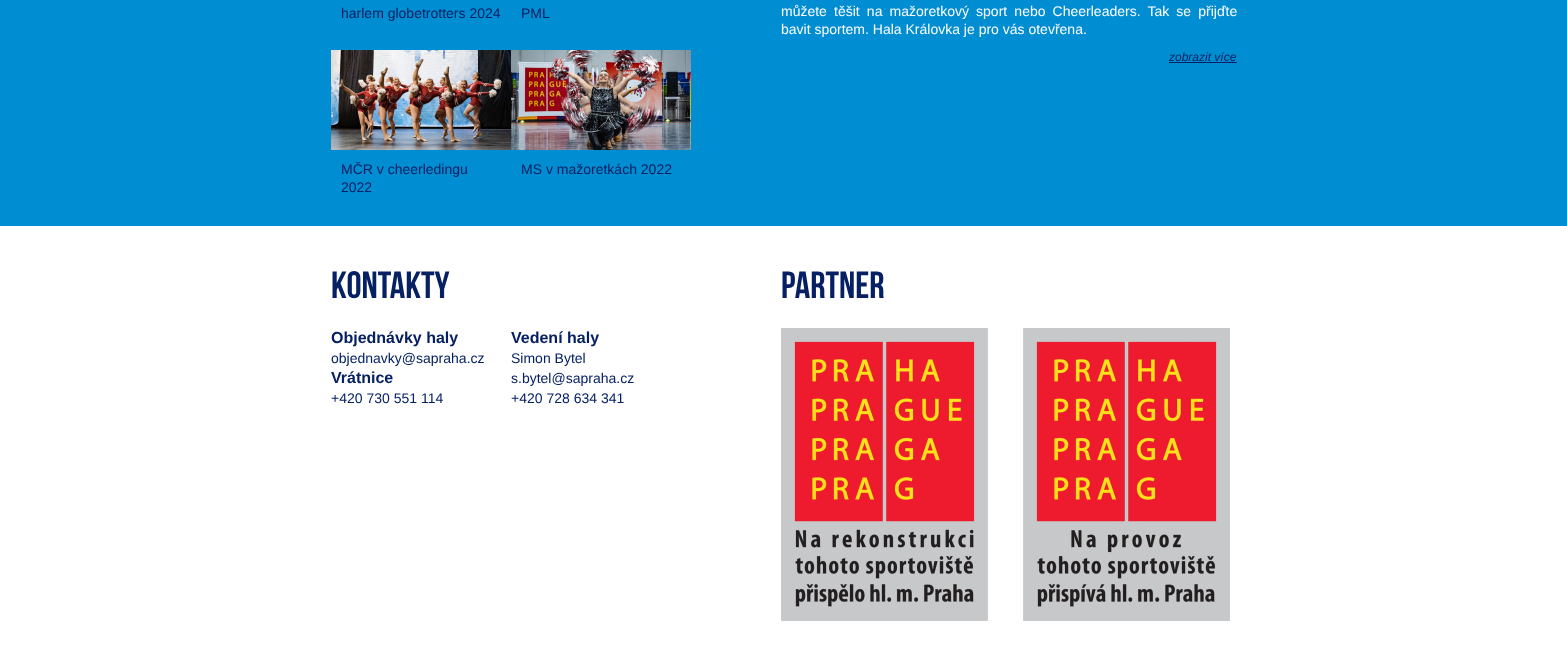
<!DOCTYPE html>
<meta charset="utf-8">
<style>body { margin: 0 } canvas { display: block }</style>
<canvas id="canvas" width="1567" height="647"></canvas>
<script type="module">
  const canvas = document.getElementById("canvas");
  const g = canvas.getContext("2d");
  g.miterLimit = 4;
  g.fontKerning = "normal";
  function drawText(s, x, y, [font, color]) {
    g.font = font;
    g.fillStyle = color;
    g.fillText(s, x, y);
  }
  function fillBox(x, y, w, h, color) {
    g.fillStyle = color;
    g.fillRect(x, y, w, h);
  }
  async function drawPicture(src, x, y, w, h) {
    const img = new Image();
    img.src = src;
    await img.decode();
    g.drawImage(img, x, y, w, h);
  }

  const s1 = ["14px Liberation Sans", "#062063"];
  const s2 = ["14px Liberation Sans", "#FEFEFE"];
  const s3 = ["italic 12px Liberation Sans", "#062063"];
  const s4 = ["38px Bebas Neue", "#062063"];
  const s5 = ["bold 16px Liberation Sans", "#062063"];

  fillBox(0, 0, 1567, 647, "#FFFFFF");
  fillBox(0, 0, 1567, 226, "#008DD2");
  drawText("harlem globetrotters 2024", 341, 18, s1);
  drawText("PML", 521, 18, s1);
  await drawPicture("pic1.png", 331, 50, 180, 100);
  drawText("MČR v cheerledingu", 341, 174, s1);
  drawText("2022", 341, 192, s1);
  await drawPicture("pic2.png", 511, 50, 180, 100);
  drawText("MS v mažoretkách 2022", 521, 174, s1);
  g.wordSpacing = "3.25px";
  drawText("můžete těšit na mažoretkový sport nebo Cheerleaders. Tak se přijďte", 781, 16, s2);
  g.wordSpacing = "0px";
  drawText("bavit sportem. Hala Královka je pro vás otevřena.", 781, 34, s2);
  drawText("zobrazit více", 1169, 61, s3);
  fillBox(1169, 62, 68, 1, "#062063");
  drawText("Kontakty", 331, 298, s4);
  drawText("Objednávky haly", 331, 343, s5);
  drawText("objednavky@sapraha.cz", 331, 363, s1);
  drawText("Vrátnice", 331, 383, s5);
  drawText("+420 730 551 114", 331, 403, s1);
  drawText("Vedení haly", 511, 343, s5);
  drawText("Simon Bytel", 511, 363, s1);
  drawText("s.bytel@sapraha.cz", 511, 383, s1);
  drawText("+420 728 634 341", 511, 403, s1);
  drawText("partner", 781, 298, s4);
  await drawPicture("pic3.png", 781, 328, 449, 293);
</script>
